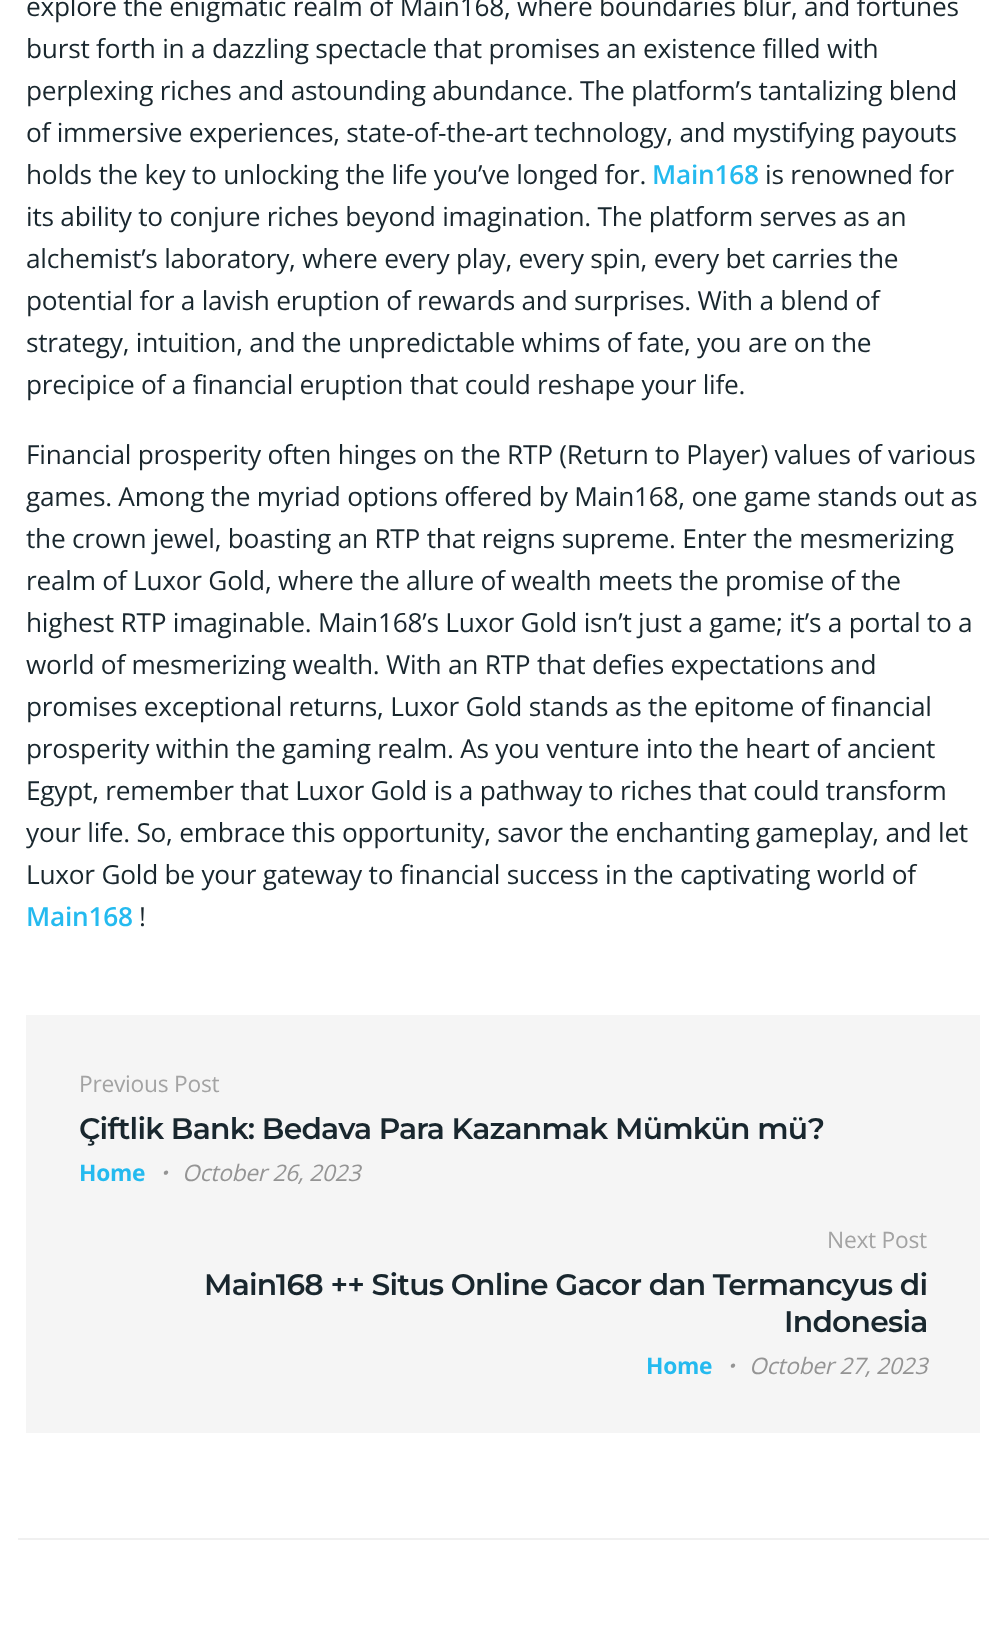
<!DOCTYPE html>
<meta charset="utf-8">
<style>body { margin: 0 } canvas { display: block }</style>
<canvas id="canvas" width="1006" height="1647"></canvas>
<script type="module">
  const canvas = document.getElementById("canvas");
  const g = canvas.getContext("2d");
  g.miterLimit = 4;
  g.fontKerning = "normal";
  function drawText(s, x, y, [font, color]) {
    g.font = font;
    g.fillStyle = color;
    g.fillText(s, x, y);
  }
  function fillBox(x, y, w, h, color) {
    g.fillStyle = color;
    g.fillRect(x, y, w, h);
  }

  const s1 = ["26.25px Open Sans", "#19272E"];
  const s2 = ["600 26.25px Open Sans", "#24BAEF"];
  const s3 = ["22.75px Open Sans", "#A3A3A3"];
  const s4 = ["600 29.75px Montserrat", "#19272E"];
  const s5 = ["bold 22.75px Open Sans", "#24BAEF"];
  const s6 = ["italic bold 22.75px WenQuanYi Zen Hei", "#949494"];
  const s7 = ["italic 22.75px Open Sans", "#949494"];

  fillBox(0, 0, 1006, 1647, "#FFFFFF");
  g.letterSpacing = "-0.25px";
  drawText("explore the enigmatic realm of Main168, where boundaries blur, and fortunes", 26, 16, s1);
  drawText("burst forth in a dazzling spectacle that promises an existence filled with", 26, 58, s1);
  drawText("perplexing riches and astounding abundance. The platform’s tantalizing blend", 26, 100, s1);
  drawText("of immersive experiences, state-of-the-art technology, and mystifying payouts", 26, 142, s1);
  drawText("holds the key to unlocking the life you’ve longed for.", 26, 184, s1);
  drawText("Main168", 652, 184, s2);
  drawText("is renowned for", 765, 184, s1);
  drawText("its ability to conjure riches beyond imagination. The platform serves as an", 26, 226, s1);
  drawText("alchemist’s laboratory, where every play, every spin, every bet carries the", 26, 268, s1);
  drawText("potential for a lavish eruption of rewards and surprises. With a blend of", 26, 310, s1);
  drawText("strategy, intuition, and the unpredictable whims of fate, you are on the", 26, 352, s1);
  drawText("precipice of a financial eruption that could reshape your life.", 26, 394, s1);
  drawText("Financial prosperity often hinges on the RTP (Return to Player) values of various", 26, 464, s1);
  drawText("games. Among the myriad options offered by Main168, one game stands out as", 26, 506, s1);
  drawText("the crown jewel, boasting an RTP that reigns supreme. Enter the mesmerizing", 26, 548, s1);
  drawText("realm of Luxor Gold, where the allure of wealth meets the promise of the", 26, 590, s1);
  drawText("highest RTP imaginable. Main168’s Luxor Gold isn’t just a game; it’s a portal to a", 26, 632, s1);
  drawText("world of mesmerizing wealth. With an RTP that defies expectations and", 26, 674, s1);
  drawText("promises exceptional returns, Luxor Gold stands as the epitome of financial", 26, 716, s1);
  drawText("prosperity within the gaming realm. As you venture into the heart of ancient", 26, 758, s1);
  drawText("Egypt, remember that Luxor Gold is a pathway to riches that could transform", 26, 800, s1);
  drawText("your life. So, embrace this opportunity, savor the enchanting gameplay, and let", 26, 842, s1);
  drawText("Luxor Gold be your gateway to financial success in the captivating world of", 26, 884, s1);
  drawText("Main168", 26, 926, s2);
  drawText("!", 139, 926, s1);
  fillBox(26, 1015, 954, 418, "#F5F5F5");
  drawText("Previous Post", 79, 1092, s3);
  g.letterSpacing = "-0.75px";
  drawText("Çiftlik Bank: Bedava Para Kazanmak Mümkün mü?", 79, 1139, s4);
  g.letterSpacing = "-0.25px";
  drawText("Home", 79, 1181, s5);
  drawText("・", 152, 1181, s6);
  drawText("October 26, 2023", 182, 1181, s7);
  drawText("Next Post", 827, 1248, s3);
  g.letterSpacing = "-0.75px";
  drawText("Main168 ++ Situs Online Gacor dan Termancyus di", 204, 1295, s4);
  drawText("Indonesia", 784, 1332, s4);
  g.letterSpacing = "-0.25px";
  drawText("Home", 646, 1374, s5);
  drawText("・", 719, 1374, s6);
  drawText("October 27, 2023", 749, 1374, s7);
  fillBox(18, 1538, 971, 2, "#F0F0F0");
</script>
